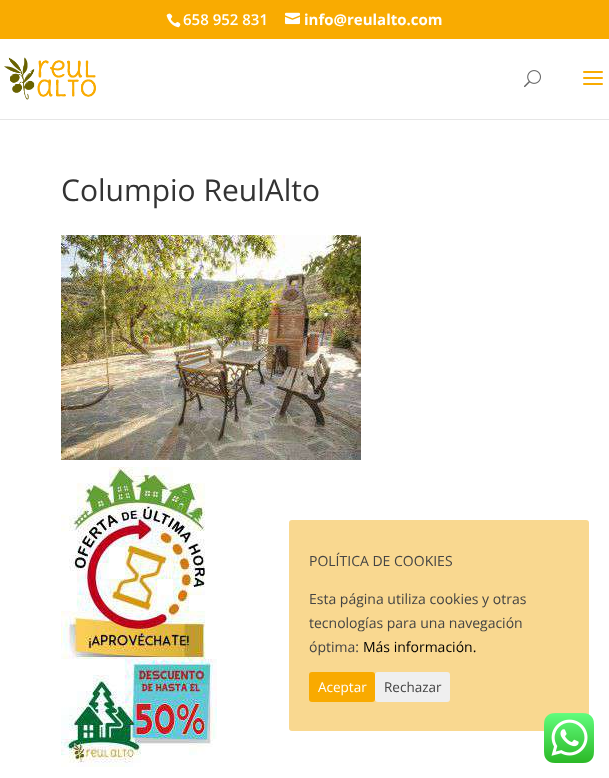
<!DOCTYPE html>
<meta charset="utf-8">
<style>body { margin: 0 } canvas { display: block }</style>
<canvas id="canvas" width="609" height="778"></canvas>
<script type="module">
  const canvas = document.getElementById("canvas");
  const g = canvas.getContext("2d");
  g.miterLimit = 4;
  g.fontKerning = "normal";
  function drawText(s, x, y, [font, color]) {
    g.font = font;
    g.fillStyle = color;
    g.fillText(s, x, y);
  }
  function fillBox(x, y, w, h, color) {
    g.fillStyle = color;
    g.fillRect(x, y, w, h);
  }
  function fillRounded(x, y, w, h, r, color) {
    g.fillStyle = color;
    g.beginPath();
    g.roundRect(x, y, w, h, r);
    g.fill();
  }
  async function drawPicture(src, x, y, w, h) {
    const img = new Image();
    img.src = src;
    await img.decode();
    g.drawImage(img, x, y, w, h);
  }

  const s1 = ["600 15px Open Sans", "#FFFFFF"];
  const s2 = ["bold 15px Open Sans", "#FFFFFF"];
  const s3 = ["30px Open Sans", "#333333"];
  const s4 = ["14px Open Sans", "#444444"];
  const s5 = ["14px Open Sans", "#000000"];
  const s6 = ["13.5px Open Sans", "#FFFFFF"];
  const s7 = ["13.5px Open Sans", "#444444"];

  fillBox(0, 0, 609, 778, "#FFFFFF");
  fillBox(0, 0, 609, 39, "#F9AB01");
  await drawPicture("pic1.png", 166, 13, 15, 15);
  drawText("658 952 831", 183, 25, s1);
  await drawPicture("pic2.png", 285, 12, 15, 13);
  drawText("info@reulalto.com", 304, 25, s2);
  fillBox(0, 119, 609, 1, "#E6E6E6");
  await drawPicture("pic3.png", 4, 57, 92, 43);
  await drawPicture("pic4.png", 524, 70, 17, 18);
  await drawPicture("pic5.png", 583, 71, 20, 14);
  drawText("Columpio ReulAlto", 61, 201, s3);
  await drawPicture("pic6.png", 61, 235, 300, 225);
  await drawPicture("pic7.png", 61, 467, 156, 300);
  fillRounded(289, 520, 300, 211, 3, "#F9D890");
  drawText("POLÍTICA DE COOKIES", 309, 566, s4);
  drawText("Esta página utiliza cookies y otras", 309, 604, s4);
  drawText("tecnologías para una navegación", 309, 628, s4);
  drawText("óptima:", 309, 652, s4);
  drawText("Más información.", 363, 652, s5);
  fillRounded(309, 672, 66, 30, 3, "#F9AA00");
  drawText("Aceptar", 318, 692, s6);
  fillRounded(375, 672, 75, 30, 3, "#EFEFEF");
  drawText("Rechazar", 384, 692, s7);
  await drawPicture("pic8.png", 544, 713, 50, 50);
</script>
